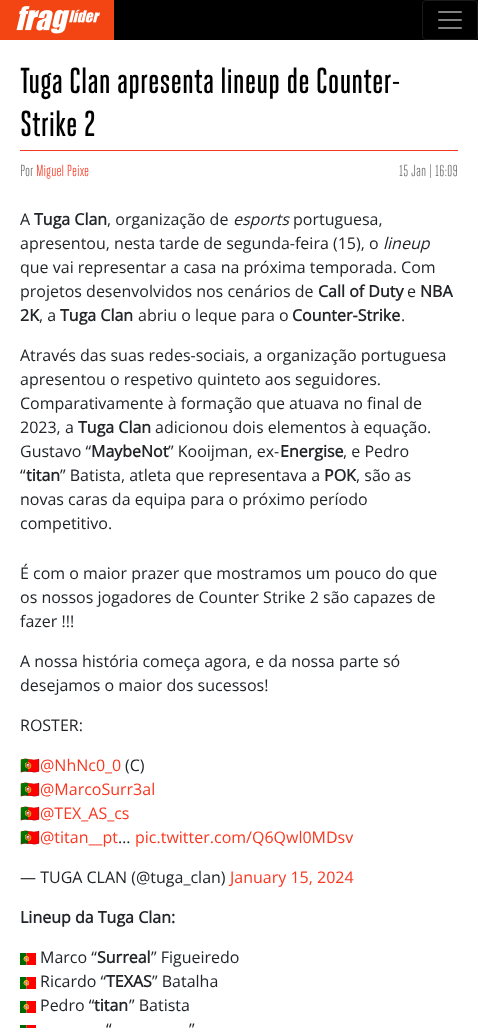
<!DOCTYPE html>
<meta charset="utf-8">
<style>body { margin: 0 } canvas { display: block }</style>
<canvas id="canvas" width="478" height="1028"></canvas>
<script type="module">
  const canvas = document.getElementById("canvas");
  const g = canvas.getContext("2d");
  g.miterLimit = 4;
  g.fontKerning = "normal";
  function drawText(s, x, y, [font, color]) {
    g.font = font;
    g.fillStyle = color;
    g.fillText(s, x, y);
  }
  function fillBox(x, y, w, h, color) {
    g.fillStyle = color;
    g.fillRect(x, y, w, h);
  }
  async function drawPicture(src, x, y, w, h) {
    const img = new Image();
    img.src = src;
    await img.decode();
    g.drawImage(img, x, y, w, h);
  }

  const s1 = ["500 36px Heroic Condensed", "#000000"];
  const s2 = ["16px Heroic Condensed", "#6B6B6B"];
  const s3 = ["16px Heroic Condensed", "#F93822"];
  const s4 = ["16px Open Sans", "#212529"];
  const s5 = ["bold 16px Open Sans", "#212529"];
  const s6 = ["italic 16px Open Sans", "#212529"];
  const s7 = ["16px Noto Color Emoji", "#212529"];
  const s8 = ["16px Open Sans", "#F93822"];

  fillBox(0, 0, 478, 1028, "#FFFFFF");
  fillBox(114, 0, 364, 40, "#000000");
  await drawPicture("pic1.png", 0, 0, 114, 40);
  g.beginPath();
  g.roundRect(422.5, 0.5, 55, 39, 3.5);
  g.strokeStyle = "#1A1A1A";
  g.stroke();
  await drawPicture("pic2.png", 438, 11, 24, 18);
  fillBox(20, 150, 438, 1, "#F93822");
  drawText("Tuga Clan apresenta lineup de Counter-", 20, 93, s1);
  drawText("Strike 2", 20, 136, s1);
  drawText("Por", 20, 176, s2);
  drawText("Miguel Peixe", 36, 176, s3);
  drawText("15 Jan | 16:09", 399, 176, s2);
  drawText("A", 20, 225, s4);
  drawText("Tuga Clan", 34, 225, s5);
  drawText(", organização de", 107, 225, s4);
  drawText("esports", 233, 225, s6);
  drawText("portuguesa,", 293, 225, s4);
  drawText("apresentou, nesta tarde de segunda-feira (15), o", 20, 249, s4);
  drawText("lineup", 383, 249, s6);
  drawText("que vai representar a casa na próxima temporada. Com", 20, 273, s4);
  drawText("projetos desenvolvidos nos cenários de", 20, 297, s4);
  drawText("Call of Duty", 318, 297, s5);
  drawText("e", 407, 297, s4);
  drawText("NBA", 420, 297, s5);
  drawText("2K", 20, 321, s5);
  drawText(", a", 39, 321, s4);
  drawText("Tuga Clan", 60, 321, s5);
  drawText("abriu o leque para o", 138, 321, s4);
  drawText("Counter-Strike", 292, 321, s5);
  drawText(".", 401, 321, s4);
  drawText("Através das suas redes-sociais, a organização portuguesa", 20, 361, s4);
  drawText("apresentou o respetivo quinteto aos seguidores.", 20, 385, s4);
  drawText("Comparativamente à formação que atuava no final de", 20, 409, s4);
  drawText("2023, a", 20, 433, s4);
  drawText("Tuga Clan", 78, 433, s5);
  drawText("adicionou dois elementos à equação.", 155, 433, s4);
  drawText("Gustavo “", 20, 457, s4);
  drawText("MaybeNot", 91, 457, s5);
  drawText("” Kooijman, ex-", 168, 457, s4);
  drawText("Energise", 280, 457, s5);
  drawText(", e Pedro", 343, 457, s4);
  drawText("“", 20, 481, s4);
  drawText("titan", 26, 481, s5);
  drawText("” Batista, atleta que representava a", 60, 481, s4);
  drawText("POK", 324, 481, s5);
  drawText(", são as", 356, 481, s4);
  drawText("novas caras da equipa para o próximo período", 20, 505, s4);
  drawText("competitivo.", 20, 529, s4);
  drawText("É com o maior prazer que mostramos um pouco do que", 20, 579, s4);
  drawText("os nossos jogadores de Counter Strike 2 são capazes de", 20, 603, s4);
  drawText("fazer !!!", 20, 627, s4);
  drawText("A nossa história começa agora, e da nossa parte só", 20, 667, s4);
  drawText("desejamos o maior dos sucessos!", 20, 691, s4);
  drawText("ROSTER:", 20, 731, s4);
  drawText("🇵🇹", 20, 771, s7);
  drawText("@NhNc0_0", 40, 771, s8);
  drawText("(C)", 125, 771, s4);
  drawText("🇵🇹", 20, 795, s7);
  drawText("@MarcoSurr3al", 40, 795, s8);
  drawText("🇵🇹", 20, 819, s7);
  drawText("@TEX_AS_cs", 40, 819, s8);
  drawText("🇵🇹", 20, 843, s7);
  drawText("@titan__pt", 40, 843, s8);
  drawText("…", 118, 843, s4);
  drawText("pic.twitter.com/Q6Qwl0MDsv", 135, 843, s8);
  drawText("— TUGA CLAN (@tuga_clan)", 20, 883, s4);
  drawText("January 15, 2024", 230, 883, s8);
  drawText("Lineup da Tuga Clan:", 20, 923, s5);
  await drawPicture("pic3.png", 20, 953, 16, 12);
  drawText("Marco “", 40, 963, s4);
  drawText("Surreal", 97, 963, s5);
  drawText("” Figueiredo", 151, 963, s4);
  await drawPicture("pic3.png", 20, 977, 16, 12);
  drawText("Ricardo “", 40, 987, s4);
  drawText("TEXAS", 106, 987, s5);
  drawText("” Batalha", 152, 987, s4);
  await drawPicture("pic3.png", 20, 1001, 16, 12);
  drawText("Pedro “", 40, 1011, s4);
  drawText("titan", 94, 1011, s5);
  drawText("” Batista", 129, 1011, s4);
  await drawPicture("pic4.png", 20, 1025, 16, 3);
  drawText("“", 106, 1035, s4);
  drawText("”", 189, 1035, s4);
</script>
